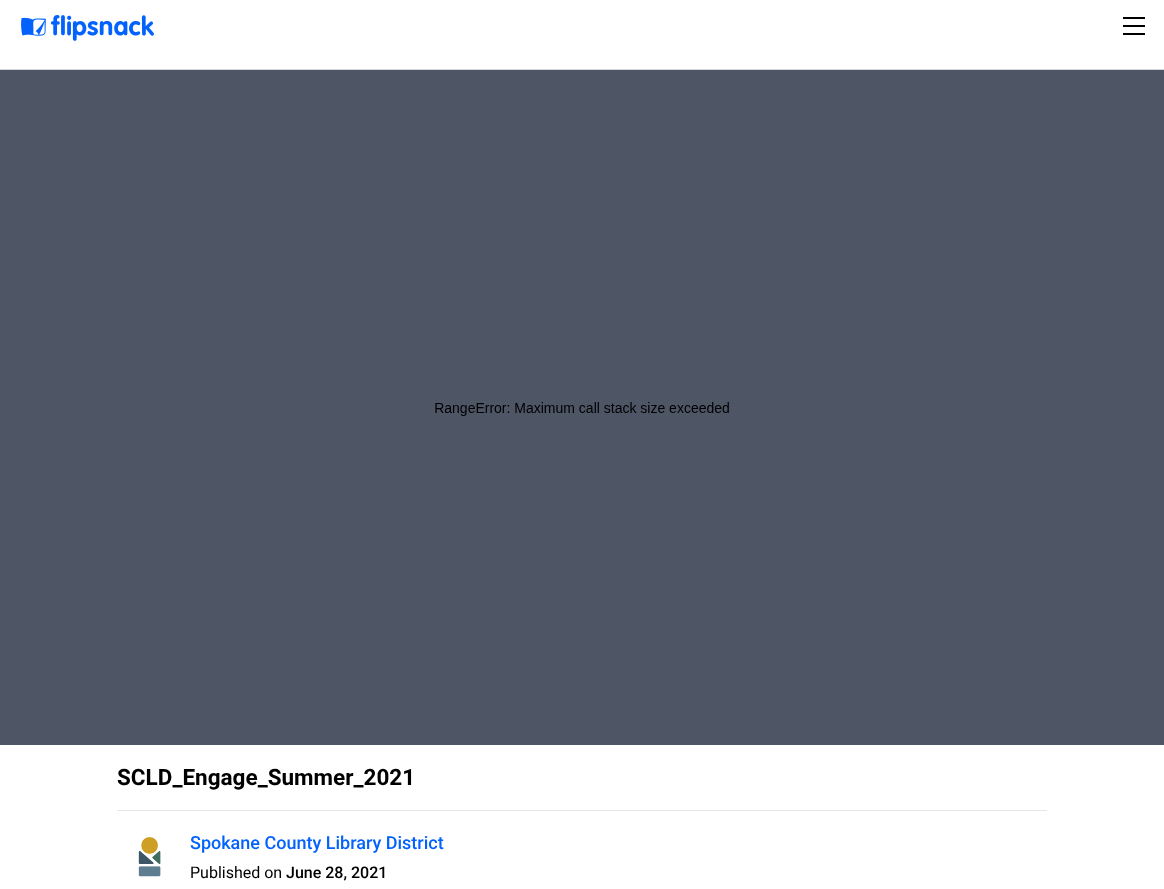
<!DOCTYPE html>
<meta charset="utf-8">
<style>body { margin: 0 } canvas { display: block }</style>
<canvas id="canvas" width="1164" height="889"></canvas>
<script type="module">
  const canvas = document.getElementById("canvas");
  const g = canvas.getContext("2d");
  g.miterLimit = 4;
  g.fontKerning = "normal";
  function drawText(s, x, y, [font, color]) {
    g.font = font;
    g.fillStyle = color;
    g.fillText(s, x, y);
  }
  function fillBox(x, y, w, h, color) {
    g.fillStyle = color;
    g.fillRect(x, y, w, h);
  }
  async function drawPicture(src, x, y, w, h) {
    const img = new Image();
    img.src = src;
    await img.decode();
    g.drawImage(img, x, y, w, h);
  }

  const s1 = ["bold 22.5px Roboto", "#000000"];
  const s2 = ["500 18px Roboto", "#0362FC"];
  const s3 = ["16px Roboto", "#000000"];
  const s4 = ["500 16px Roboto", "#000000"];

  fillBox(0, 0, 1164, 889, "#FFFFFF");
  fillBox(0, 69, 1164, 1, "#D5D5D5");
  await drawPicture("pic1.png", 21, 15, 133, 26);
  fillBox(1123, 17, 22, 2, "#000000");
  fillBox(1123, 25, 22, 2, "#000000");
  fillBox(1123, 33, 22, 2, "#000000");
  fillBox(0, 70, 1164, 675, "#4E5565");
  await drawPicture("pic2.png", 435, 402, 294, 14);
  drawText("SCLD_Engage_Summer_2021", 117, 785, s1);
  fillBox(117, 810, 930, 1, "#E6E6E6");
  await drawPicture("pic3.png", 138, 837, 23, 40);
  drawText("Spokane County Library District", 190, 849, s2);
  drawText("Published on", 190, 878, s3);
  drawText("June 28, 2021", 286, 878, s4);
</script>
